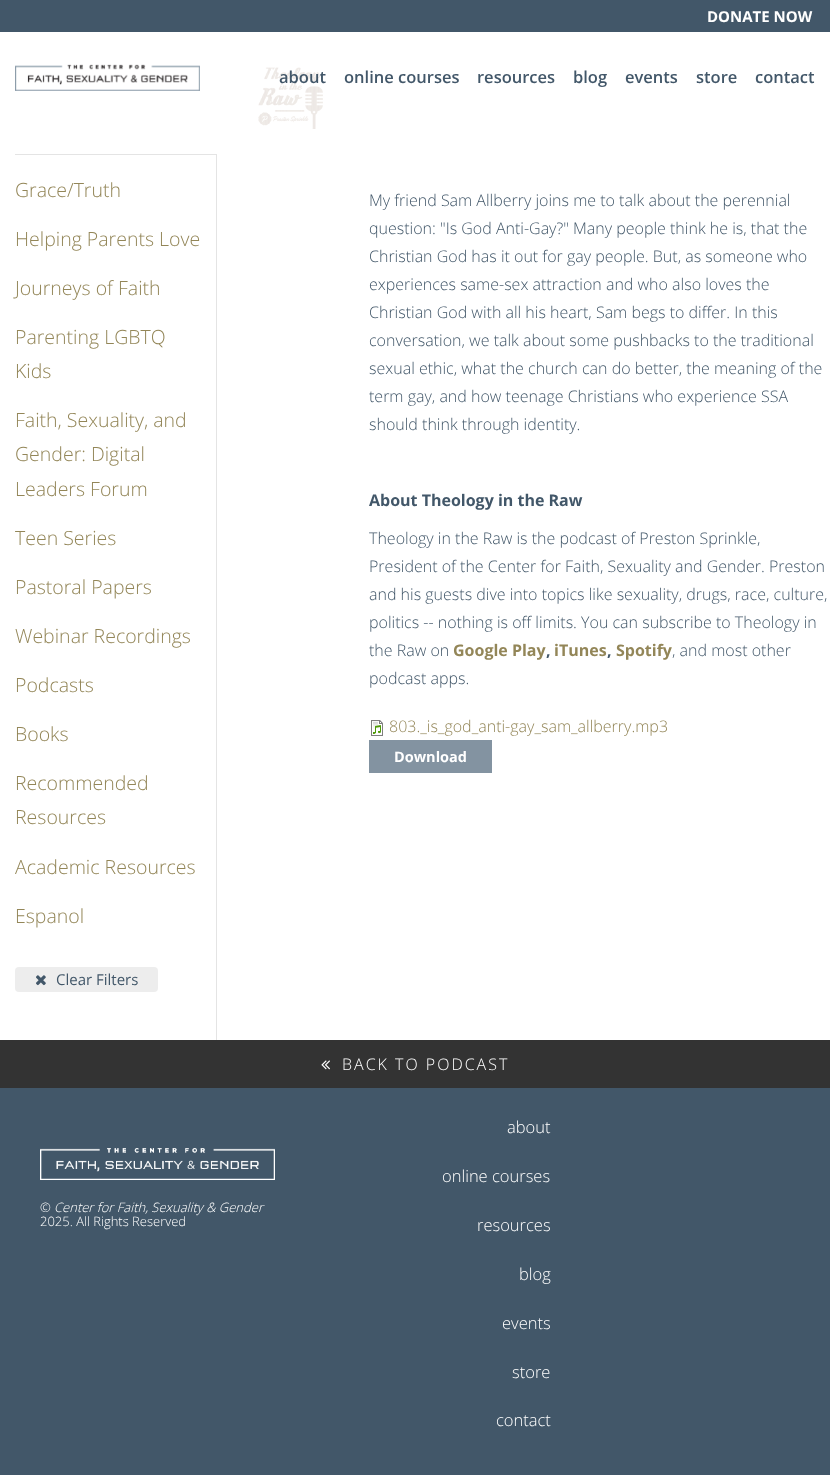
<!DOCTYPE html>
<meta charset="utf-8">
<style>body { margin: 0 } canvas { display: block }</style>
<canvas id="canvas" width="830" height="1475"></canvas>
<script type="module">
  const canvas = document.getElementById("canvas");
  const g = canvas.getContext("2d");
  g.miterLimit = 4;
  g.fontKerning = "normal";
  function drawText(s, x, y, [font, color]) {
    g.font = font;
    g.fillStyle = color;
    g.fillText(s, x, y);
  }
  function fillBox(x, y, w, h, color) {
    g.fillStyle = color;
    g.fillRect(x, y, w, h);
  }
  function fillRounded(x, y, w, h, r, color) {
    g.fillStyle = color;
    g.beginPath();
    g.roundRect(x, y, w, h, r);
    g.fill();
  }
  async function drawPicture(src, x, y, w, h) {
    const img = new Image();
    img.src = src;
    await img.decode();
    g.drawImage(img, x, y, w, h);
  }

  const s1 = ["bold 15px Open Sans", "#FFFFFF"];
  const s2 = ["600 16.5px Open Sans", "#425769"];
  const s3 = ["300 19.5px Open Sans", "#938658"];
  const s4 = ["15px Open Sans", "#425769"];
  const s5 = ["300 16px Open Sans", "#425769"];
  const s6 = ["bold 16px Open Sans", "#425769"];
  const s7 = ["bold 16px Open Sans", "#938658"];
  const s8 = ["300 16px Open Sans", "#938658"];
  const s9 = ["bold 14.5px Open Sans", "#FFFFFF"];
  const s10 = ["300 16px Open Sans", "#FFFFFF"];
  const s11 = ["300 13px Open Sans", "#FFFFFF"];
  const s12 = ["italic 300 13px Open Sans", "#FFFFFF"];
  const s13 = ["300 16.5px Open Sans", "#FFFFFF"];

  fillBox(0, 0, 830, 1475, "#FFFFFF");
  fillBox(0, 0, 830, 32, "#425769");
  drawText("DONATE NOW", 707, 22, s1);
  await drawPicture("pic2.png", 258, 67, 65, 62);
  fillBox(258, 67, 65, 62, "rgba(255, 255, 255, 0.88)");
  await drawPicture("pic1.png", 15, 64, 185, 27);
  drawText("about", 279, 83, s2);
  drawText("online courses", 344, 83, s2);
  drawText("resources", 477, 83, s2);
  drawText("blog", 573, 83, s2);
  drawText("events", 625, 83, s2);
  drawText("store", 696, 83, s2);
  drawText("contact", 755, 83, s2);
  fillBox(15, 154, 202, 1, "#E4E4E4");
  fillBox(216, 154, 1, 886, "#E4E4E4");
  drawText("Grace/Truth", 15, 197, s3);
  drawText("Helping Parents Love", 15, 246, s3);
  drawText("Journeys of Faith", 15, 295, s3);
  drawText("Parenting LGBTQ", 15, 344, s3);
  drawText("Kids", 15, 378, s3);
  drawText("Faith, Sexuality, and", 15, 427, s3);
  drawText("Gender: Digital", 15, 461, s3);
  drawText("Leaders Forum", 15, 496, s3);
  drawText("Teen Series", 15, 545, s3);
  drawText("Pastoral Papers", 15, 594, s3);
  drawText("Webinar Recordings", 15, 643, s3);
  drawText("Podcasts", 15, 692, s3);
  drawText("Books", 15, 741, s3);
  drawText("Recommended", 15, 790, s3);
  drawText("Resources", 15, 824, s3);
  drawText("Academic Resources", 15, 874, s3);
  drawText("Espanol", 15, 923, s3);
  fillRounded(15, 967, 143, 25, 4, "#EDEDED");
  await drawPicture("pic3.png", 36, 975, 10, 11);
  drawText("Clear Filters", 56, 985, s4);
  drawText("My friend Sam Allberry joins me to talk about the perennial", 369, 206, s5);
  drawText("question: \"Is God Anti-Gay?\" Many people think he is, that the", 369, 234, s5);
  drawText("Christian God has it out for gay people. But, as someone who", 369, 262, s5);
  drawText("experiences same-sex attraction and who also loves the", 369, 290, s5);
  drawText("Christian God with all his heart, Sam begs to differ. In this", 369, 318, s5);
  drawText("conversation, we talk about some pushbacks to the traditional", 369, 346, s5);
  drawText("sexual ethic, what the church can do better, the meaning of the", 369, 374, s5);
  drawText("term gay, and how teenage Christians who experience SSA", 369, 402, s5);
  drawText("should think through identity.", 369, 430, s5);
  drawText("About Theology in the Raw", 369, 506, s6);
  drawText("Theology in the Raw is the podcast of Preston Sprinkle,", 369, 544, s5);
  drawText("President of the Center for Faith, Sexuality and Gender. Preston", 369, 572, s5);
  drawText("and his guests dive into topics like sexuality, drugs, race, culture,", 369, 600, s5);
  drawText("politics -- nothing is off limits. You can subscribe to Theology in", 369, 628, s5);
  drawText("the Raw on", 369, 656, s5);
  drawText("Google Play", 453, 656, s7);
  drawText(",", 546, 656, s6);
  drawText("iTunes", 554, 656, s7);
  drawText(",", 607, 656, s6);
  drawText("Spotify", 616, 656, s7);
  drawText(", and most other", 672, 656, s5);
  drawText("podcast apps.", 369, 684, s5);
  await drawPicture("pic4.png", 371, 720, 12, 16);
  drawText("803._is_god_anti-gay_sam_allberry.mp3", 389, 732, s8);
  fillBox(369, 740, 123, 33, "#8393A1");
  drawText("Download", 394, 762, s9);
  fillBox(0, 1040, 830, 48, "#333333");
  await drawPicture("pic5.png", 321, 1060, 9, 10);
  g.letterSpacing = "2px";
  drawText("BACK TO PODCAST", 342, 1070, s10);
  fillBox(0, 1088, 830, 387, "#425769");
  await drawPicture("pic6.png", 40, 1148, 235, 32);
  g.letterSpacing = "0px";
  drawText("©", 40, 1212, s11);
  drawText("Center for Faith, Sexuality & Gender", 54, 1212, s12);
  drawText("2025. All Rights Reserved", 40, 1226, s11);
  drawText("about", 507, 1133, s13);
  drawText("online courses", 442, 1182, s13);
  drawText("resources", 477, 1231, s13);
  drawText("blog", 519, 1280, s13);
  drawText("events", 502, 1329, s13);
  drawText("store", 512, 1378, s13);
  drawText("contact", 496, 1426, s13);
</script>
